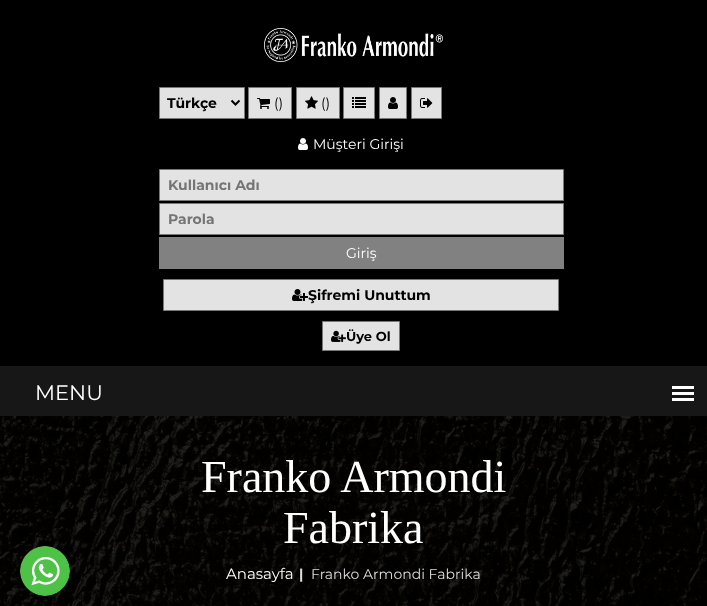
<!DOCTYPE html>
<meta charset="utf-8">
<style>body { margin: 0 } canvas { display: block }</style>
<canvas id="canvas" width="707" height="606"></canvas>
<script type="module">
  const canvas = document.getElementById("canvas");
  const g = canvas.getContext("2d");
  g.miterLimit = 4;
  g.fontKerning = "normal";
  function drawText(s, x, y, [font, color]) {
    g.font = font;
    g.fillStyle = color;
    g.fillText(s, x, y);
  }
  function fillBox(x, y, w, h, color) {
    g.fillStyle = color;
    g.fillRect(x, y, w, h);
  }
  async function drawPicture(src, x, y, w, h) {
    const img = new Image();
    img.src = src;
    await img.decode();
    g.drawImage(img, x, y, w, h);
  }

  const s1 = ["bold 14px Montserrat", "#000000"];
  const s2 = ["14px Montserrat", "#000000"];
  const s3 = ["14px Montserrat", "#FFFFFF"];
  const s4 = ["bold 14px Montserrat", "#757575"];
  const s5 = ["bold 13px Montserrat", "#000000"];
  const s6 = ["21px Montserrat", "#FFFFFF"];
  const s7 = ["46px Liberation Serif", "#FFFFFF"];
  const s8 = ["15px Montserrat", "#FFFFFF"];
  const s9 = ["bold 14px Montserrat", "#DDDDDD"];
  const s10 = ["14px Montserrat", "#DDDDDD"];

  fillBox(0, 0, 707, 606, "#000000");
  await drawPicture("pic1.png", 264, 28, 179, 34);
  g.fillStyle = "#E2E2E2";
  g.beginPath();
  g.rect(159.5, 87.5, 85, 31);
  g.fill();
  g.strokeStyle = "#787878";
  g.stroke();
  g.beginPath();
  g.moveTo(231.5, 100.5);
  g.lineTo(235.5, 104.5);
  g.lineTo(239.5, 100.5);
  g.strokeStyle = "#000000";
  g.lineWidth = 2;
  g.stroke();
  drawText("Türkçe", 167, 108, s1);
  g.fillStyle = "#E3E3E4";
  g.beginPath();
  g.rect(248.5, 87.5, 43, 31);
  g.fill();
  g.strokeStyle = "#787878";
  g.lineWidth = 1;
  g.stroke();
  await drawPicture("pic2.png", 257, 98, 13, 11);
  drawText("()", 274, 108, s2);
  g.fillStyle = "#E3E3E4";
  g.beginPath();
  g.rect(296.5, 87.5, 43, 31);
  g.fill();
  g.stroke();
  await drawPicture("pic3.png", 305, 96, 13, 13);
  drawText("()", 321, 108, s2);
  g.fillStyle = "#E3E3E4";
  g.beginPath();
  g.rect(343.5, 87.5, 31, 31);
  g.fill();
  g.stroke();
  await drawPicture("pic4.png", 352, 97, 14, 11);
  g.beginPath();
  g.rect(379.5, 87.5, 27, 31);
  g.fill();
  g.stroke();
  await drawPicture("pic5.png", 388, 97, 10, 12);
  g.beginPath();
  g.rect(411.5, 87.5, 30, 31);
  g.fill();
  g.stroke();
  await drawPicture("pic6.png", 420, 98, 13, 10);
  await drawPicture("pic7.png", 298, 138, 10, 12);
  drawText("Müşteri Girişi", 313, 149, s3);
  g.fillStyle = "#E3E3E4";
  g.beginPath();
  g.rect(159.5, 169.5, 404, 31);
  g.fill();
  g.stroke();
  drawText("Kullanıcı Adı", 168, 190, s4);
  g.fillStyle = "#E3E3E4";
  g.beginPath();
  g.rect(159.5, 203.5, 404, 31);
  g.fill();
  g.stroke();
  drawText("Parola", 168, 224, s4);
  fillBox(159, 237, 405, 32, "#818181");
  drawText("Giriş", 346, 258, s3);
  g.fillStyle = "#E3E3E4";
  g.beginPath();
  g.rect(163.5, 279.5, 395, 31);
  g.fill();
  g.stroke();
  await drawPicture("pic8.png", 292, 289, 16, 12);
  drawText("Şifremi Unuttum", 308, 300, s1);
  g.fillStyle = "#E3E3E4";
  g.beginPath();
  g.rect(322.5, 321.5, 77, 29);
  g.fill();
  g.stroke();
  await drawPicture("pic9.png", 331, 330, 15, 12);
  drawText("Üye Ol", 346, 341, s5);
  fillBox(0, 366, 707, 50, "#171717");
  drawText("MENU", 35, 400, s6);
  fillBox(672, 386, 22, 3, "#FFFFFF");
  fillBox(672, 392, 22, 3, "#FFFFFF");
  fillBox(672, 398, 22, 3, "#FFFFFF");
  await drawPicture("pic11.png", 0, 416, 707, 190);
  await drawPicture("pic10.png", 20, 546, 50, 50);
  drawText("Franko Armondi", 201, 492, s7);
  drawText("Fabrika", 283, 543, s7);
  drawText("Anasayfa", 226, 579, s8);
  drawText("|", 299, 579, s9);
  drawText("Franko Armondi Fabrika", 311, 579, s10);
</script>
